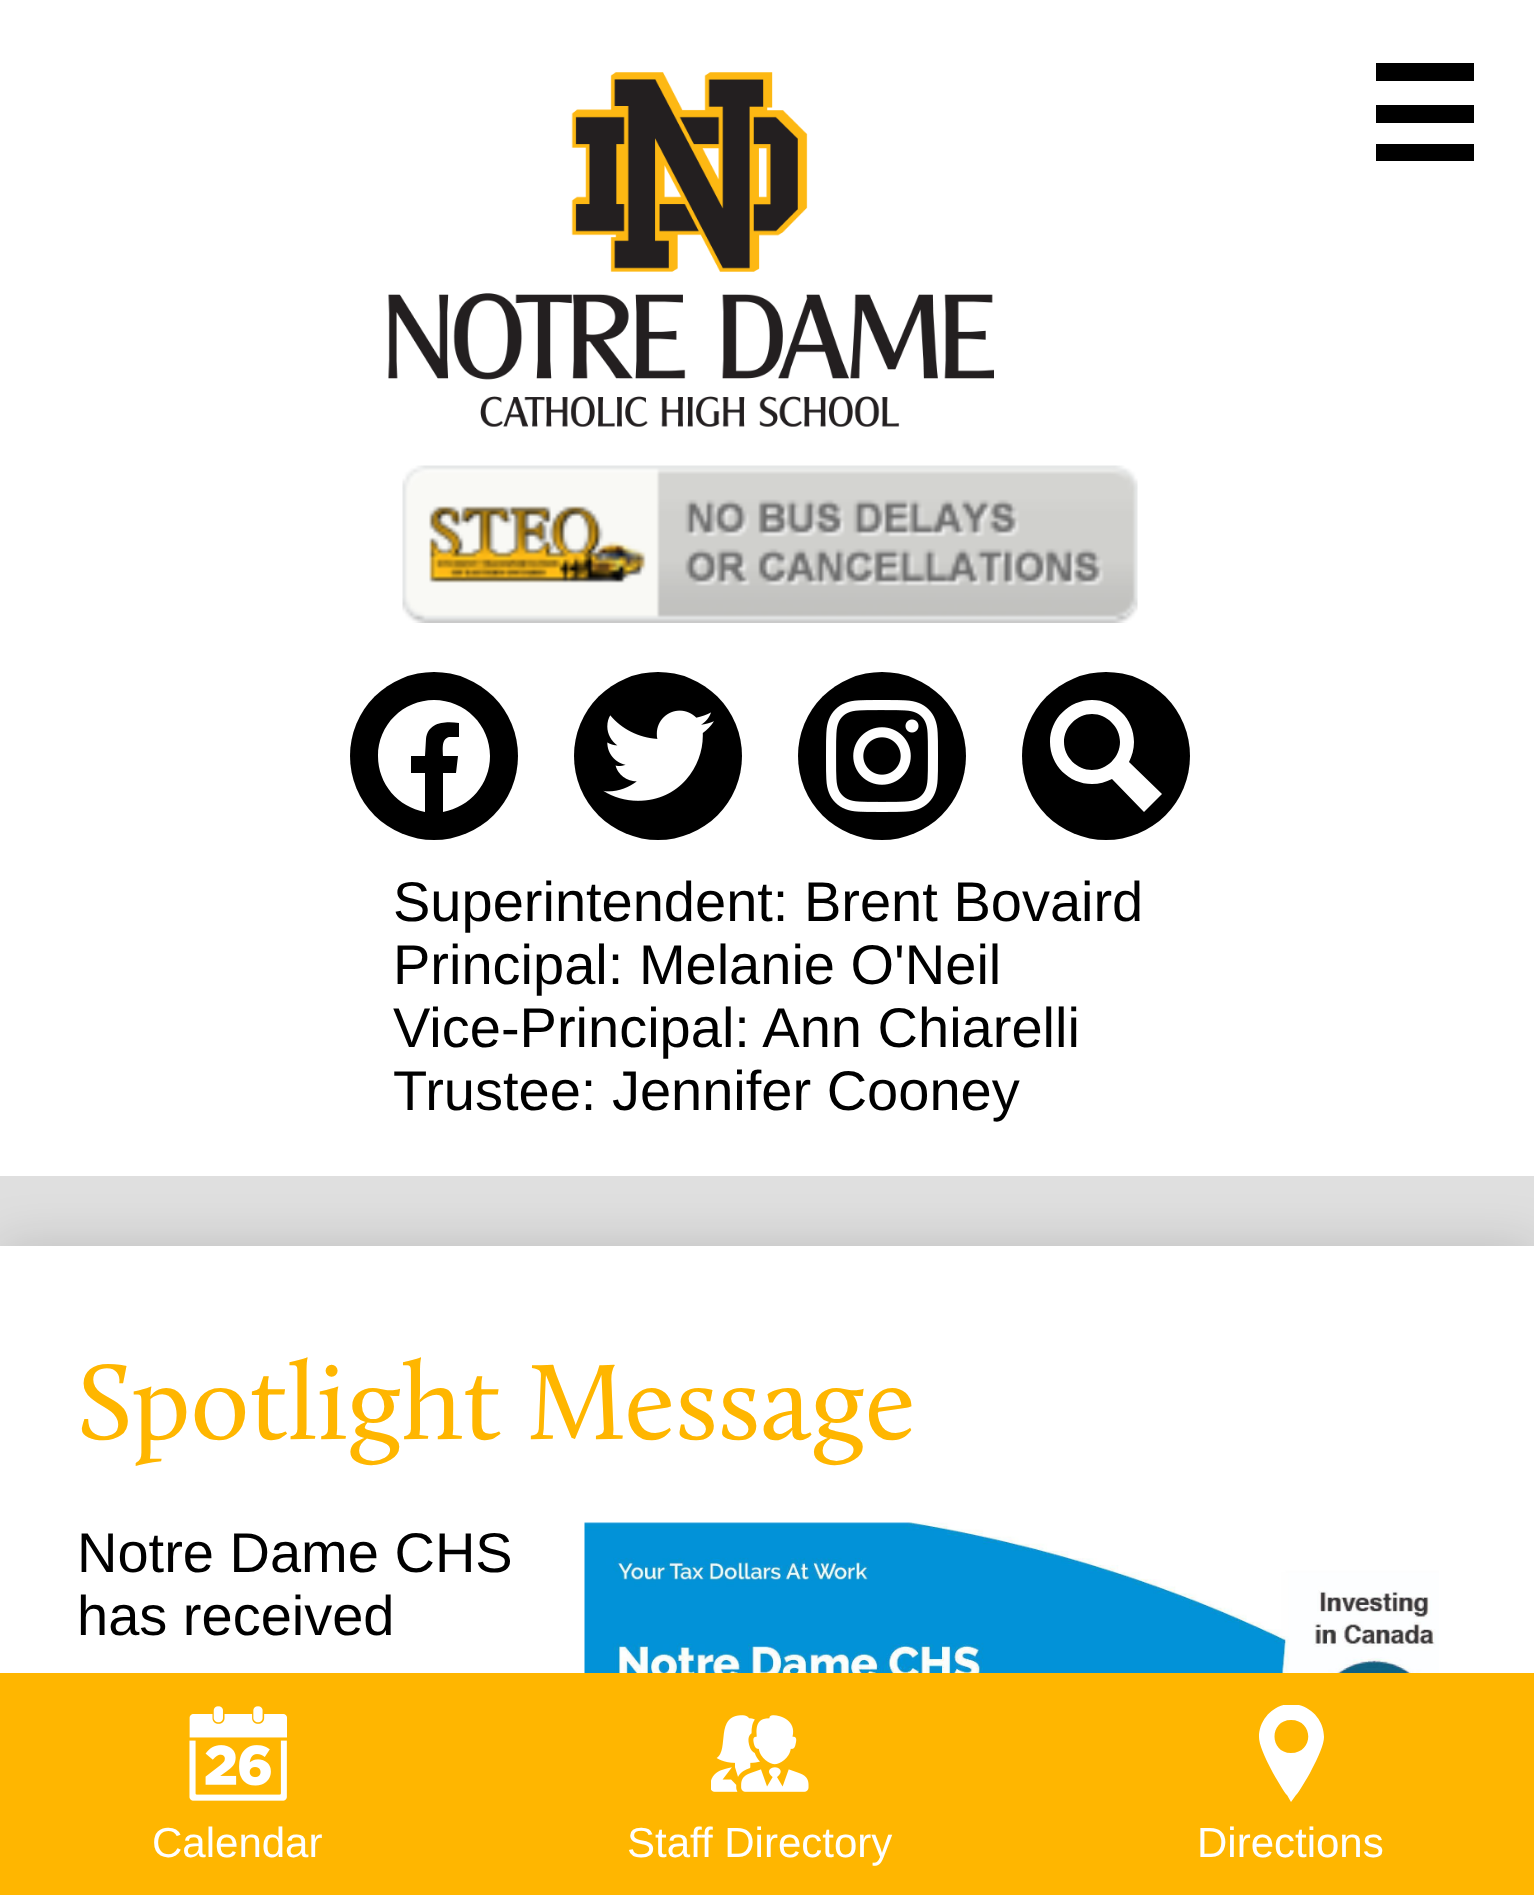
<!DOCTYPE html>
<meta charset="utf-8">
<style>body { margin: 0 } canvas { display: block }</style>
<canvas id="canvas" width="1534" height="1895"></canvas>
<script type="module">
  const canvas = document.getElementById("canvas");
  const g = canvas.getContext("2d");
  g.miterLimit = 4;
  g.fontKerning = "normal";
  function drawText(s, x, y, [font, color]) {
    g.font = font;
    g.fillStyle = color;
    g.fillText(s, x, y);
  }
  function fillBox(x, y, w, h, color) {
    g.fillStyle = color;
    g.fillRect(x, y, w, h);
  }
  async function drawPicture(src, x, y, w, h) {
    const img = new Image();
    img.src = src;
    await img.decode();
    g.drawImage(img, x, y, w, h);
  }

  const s1 = ["56px Liberation Sans", "#000000"];
  const s2 = ["110.5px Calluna", "#FFB600"];
  const s3 = ["42px Liberation Sans", "#FFFFFF"];

  fillBox(0, 0, 1534, 1895, "#DFDFDF");
  g.fillStyle = "rgba(0, 0, 0, 0.15)";
  g.filter = "blur(26px)";
  g.beginPath();
  g.rect(0, 1246, 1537, 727);
  g.fill();
  g.filter = "none";
  fillBox(0, 0, 1534, 1176, "#FFFFFF");
  await drawPicture("pic1.png", 388, 72, 606, 355);
  fillBox(1376, 63, 98, 18, "#000000");
  fillBox(1376, 105, 98, 18, "#000000");
  fillBox(1376, 144, 98, 17, "#000000");
  await drawPicture("pic2.png", 402, 465, 736, 158);
  g.beginPath();
  g.arc(434, 756, 84, 0, Math.PI * 2);
  g.fill();
  g.fillStyle = "#FFFFFF";
  g.beginPath();
  g.moveTo(490, 756);
  g.bezierCurveTo(490, 725, 465, 700, 434, 700);
  g.bezierCurveTo(403, 700, 378, 725, 378, 756);
  g.bezierCurveTo(378, 784, 398, 807, 425, 812);
  g.lineTo(425, 773);
  g.lineTo(411, 773);
  g.lineTo(411, 756);
  g.lineTo(425, 756);
  g.lineTo(426, 739);
  g.bezierCurveTo(428, 722, 445, 721, 459, 723);
  g.lineTo(459, 737);
  g.lineTo(449, 737);
  g.bezierCurveTo(441, 739, 443, 750, 443, 756);
  g.lineTo(458, 756);
  g.lineTo(456, 773);
  g.lineTo(443, 773);
  g.lineTo(443, 812);
  g.bezierCurveTo(470, 807, 490, 784, 490, 756);
  g.closePath();
  g.fill();
  g.fillStyle = "#000000";
  g.beginPath();
  g.arc(658, 756, 84, 0, Math.PI * 2);
  g.fill();
  await drawPicture("pic3.png", 603, 710, 111, 91);
  g.beginPath();
  g.arc(882, 756, 84, 0, Math.PI * 2);
  g.fill();
  await drawPicture("pic4.png", 826, 700, 112, 112);
  g.beginPath();
  g.arc(1106, 756, 84, 0, Math.PI * 2);
  g.fill();
  g.fillStyle = "#FFFFFF";
  g.beginPath();
  g.moveTo(1162, 794);
  g.lineTo(1129, 762);
  g.bezierCurveTo(1132, 756, 1134, 749, 1134, 742);
  g.bezierCurveTo(1134, 719, 1115, 700, 1092, 700);
  g.bezierCurveTo(1069, 700, 1050, 719, 1050, 742);
  g.bezierCurveTo(1050, 765, 1069, 784, 1092, 784);
  g.bezierCurveTo(1099, 784, 1106, 782, 1112, 779);
  g.lineTo(1144, 812);
  g.closePath();
  g.moveTo(1064, 742);
  g.bezierCurveTo(1064, 727, 1077, 714, 1092, 714);
  g.bezierCurveTo(1107, 714, 1120, 727, 1120, 742);
  g.bezierCurveTo(1120, 757, 1107, 770, 1092, 770);
  g.bezierCurveTo(1077, 770, 1064, 757, 1064, 742);
  g.closePath();
  g.fill();
  drawText("Superintendent: Brent Bovaird", 393, 921, s1);
  drawText("Principal: Melanie O'Neil", 393, 984, s1);
  drawText("Vice-Principal: Ann Chiarelli", 393, 1047, s1);
  drawText("Trustee: Jennifer Cooney", 393, 1110, s1);
  fillBox(0, 1246, 1534, 427, "#FFFFFF");
  drawText("Spotlight Message", 77, 1439, s2);
  drawText("Notre Dame CHS", 77, 1572, s1);
  drawText("has received", 77, 1635, s1);
  await drawPicture("pic5.png", 584, 1522, 855, 151);
  fillBox(0, 1673, 1534, 222, "#FFB600");
  await drawPicture("pic6.png", 189, 1706, 98, 95);
  drawText("Calendar", 152, 1857, s3);
  await drawPicture("pic7.png", 711, 1715, 98, 77);
  drawText("Staff Directory", 627, 1857, s3);
  g.save();
  g.beginPath();
  g.rect(1243, 1705, 98, 98);
  g.clip();
  g.beginPath();
  g.moveTo(1291, 1704);
  g.bezierCurveTo(1274, 1704, 1259, 1719, 1259, 1737);
  g.bezierCurveTo(1259, 1744, 1264, 1756, 1273, 1773);
  g.bezierCurveTo(1280, 1785, 1286, 1795, 1287, 1795);
  g.lineTo(1291, 1802);
  g.lineTo(1296, 1795);
  g.bezierCurveTo(1297, 1795, 1303, 1785, 1310, 1773);
  g.bezierCurveTo(1319, 1756, 1324, 1744, 1324, 1737);
  g.bezierCurveTo(1324, 1719, 1309, 1704, 1291, 1704);
  g.closePath();
  g.moveTo(1291, 1753);
  g.bezierCurveTo(1269, 1753, 1269, 1720, 1291, 1720);
  g.bezierCurveTo(1314, 1720, 1314, 1753, 1291, 1753);
  g.closePath();
  g.fill();
  g.restore();
  drawText("Directions", 1197, 1857, s3);
</script>
